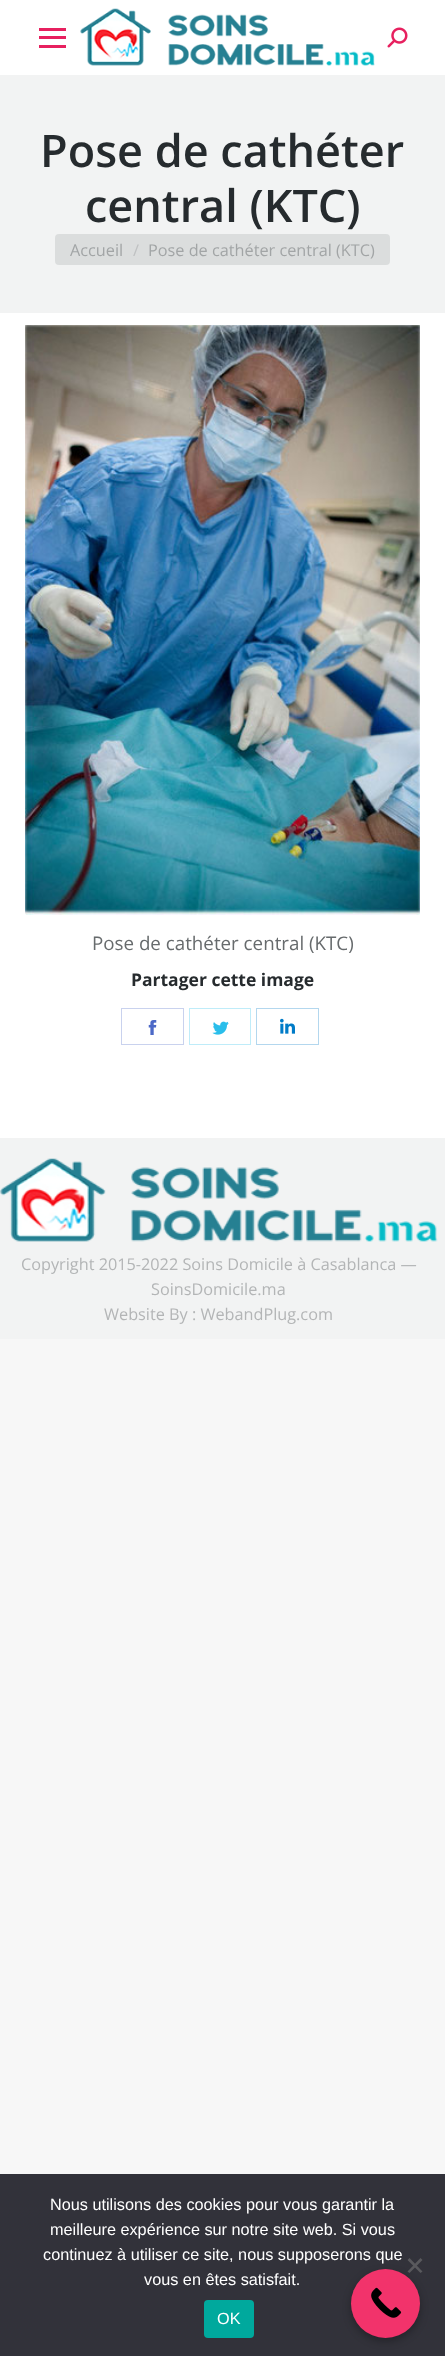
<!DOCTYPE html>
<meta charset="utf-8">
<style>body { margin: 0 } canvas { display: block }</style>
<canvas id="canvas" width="445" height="2356"></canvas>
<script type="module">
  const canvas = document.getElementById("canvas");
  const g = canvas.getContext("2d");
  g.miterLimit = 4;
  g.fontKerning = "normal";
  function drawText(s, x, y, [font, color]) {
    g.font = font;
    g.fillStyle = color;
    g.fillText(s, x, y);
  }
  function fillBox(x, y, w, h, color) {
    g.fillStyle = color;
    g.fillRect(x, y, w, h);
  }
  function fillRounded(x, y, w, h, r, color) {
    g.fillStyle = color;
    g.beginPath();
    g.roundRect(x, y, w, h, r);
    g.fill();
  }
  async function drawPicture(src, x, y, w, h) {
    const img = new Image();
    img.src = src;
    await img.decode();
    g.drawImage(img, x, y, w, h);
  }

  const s1 = ["600 45px Open Sans", "#262B2E"];
  const s2 = ["16.25px Open Sans", "#A2A5A6"];
  const s3 = ["16.25px Open Sans", "#BFC1C2"];
  const s4 = ["18.75px Open Sans", "#676B6D"];
  const s5 = ["bold 17.5px Open Sans", "#262B2E"];
  const s6 = ["16.25px Open Sans", "#B3B5B6"];
  const s7 = ["16.25px Liberation Sans", "#FFFFFF"];

  fillBox(0, 0, 445, 2356, "#F7F7F7");
  fillBox(0, 0, 445, 1138, "#FFFFFF");
  fillBox(39, 28, 27, 3, "#E7205F");
  fillBox(39, 36, 27, 3, "#E7205F");
  fillBox(39, 45, 27, 3, "#E7205F");
  await drawPicture("pic1.png", 80, 8, 295, 58);
  await drawPicture("pic2.png", 387, 27, 21, 21);
  fillBox(0, 75, 445, 238, "#F2F3F3");
  drawText("Pose de cathéter", 40, 167, s1);
  drawText("central (KTC)", 85, 222, s1);
  fillRounded(55, 234, 335, 31, 4, "#DBDDDD");
  drawText("Accueil", 70, 256, s2);
  drawText("/", 133, 256, s3);
  drawText("Pose de cathéter central (KTC)", 148, 256, s2);
  await drawPicture("pic3.png", 25, 325, 395, 590);
  drawText("Pose de cathéter central (KTC)", 92, 950, s4);
  drawText("Partager cette image", 131, 986, s5);
  g.strokeStyle = "#C9D2EE";
  g.strokeRect(121.5, 1008.5, 62, 36);
  await drawPicture("pic4.png", 148, 1020, 9, 15);
  g.strokeStyle = "#BFECF9";
  g.strokeRect(189.5, 1008.5, 61, 36);
  await drawPicture("pic5.png", 212, 1021, 17, 14);
  g.strokeStyle = "#B3D7EE";
  g.strokeRect(256.5, 1008.5, 62, 36);
  await drawPicture("pic6.png", 280, 1018, 15, 16);
  fillBox(0, 1138, 445, 201, "#F2F3F3");
  await drawPicture("pic7.png", 0, 1158, 438, 84);
  drawText("Copyright 2015-2022 Soins Domicile à Casablanca —", 21, 1270, s6);
  drawText("SoinsDomicile.ma", 151, 1295, s6);
  drawText("Website By : WebandPlug.com", 104, 1320, s6);
  fillBox(0, 2174, 445, 182, "#32323A");
  drawText("Nous utilisons des cookies pour vous garantir la", 50, 2210, s7);
  drawText("meilleure expérience sur notre site web. Si vous", 50, 2235, s7);
  drawText("continuez à utiliser ce site, nous supposerons que", 43, 2260, s7);
  drawText("vous en êtes satisfait.", 144, 2285, s7);
  g.fillStyle = "#59595D";
  g.beginPath();
  g.moveTo(420.5, 2258);
  g.lineTo(422.5, 2260);
  g.lineTo(409.5, 2273);
  g.lineTo(407.5, 2271.5);
  g.closePath();
  g.fill();
  g.beginPath();
  g.moveTo(407.5, 2260);
  g.lineTo(409.5, 2258);
  g.lineTo(422.5, 2271.5);
  g.lineTo(420.5, 2273);
  g.closePath();
  g.fill();
  fillRounded(204, 2300, 50, 38, 4, "#00A99D");
  drawText("OK", 217, 2324, s7);
  g.fillStyle = "rgba(0, 0, 0, 0.3)";
  g.filter = "blur(4px)";
  g.beginPath();
  g.roundRect(351, 2273, 69, 68, 34);
  g.fill();
  g.filter = "none";
  g.fillStyle = "#F2336B";
  g.beginPath();
  g.arc(385.5, 2303.5, 34.5, 0, Math.PI * 2);
  g.fill();
  await drawPicture("pic8.png", 371, 2287, 31, 31);
</script>
